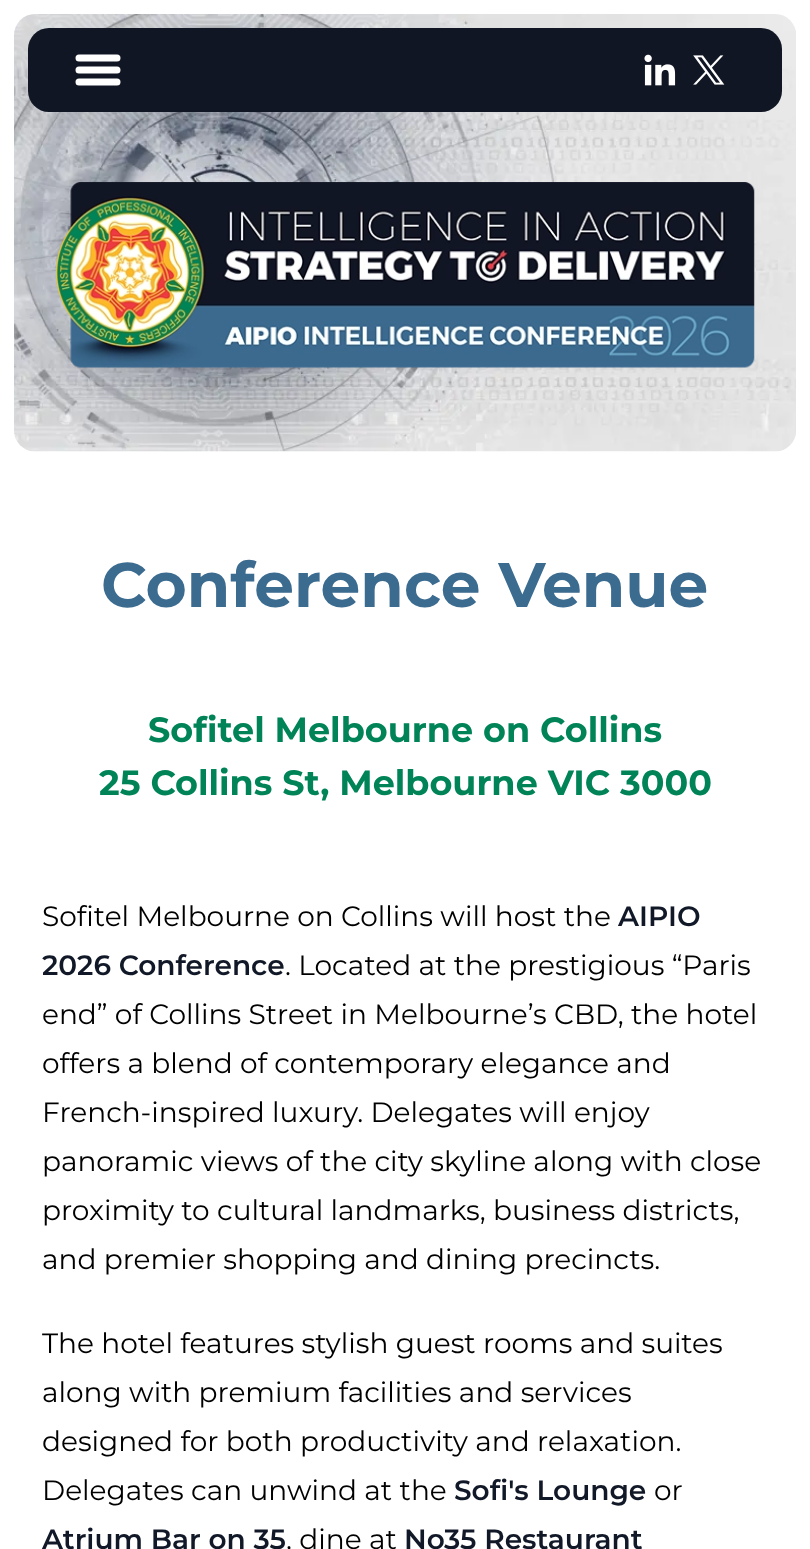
<!DOCTYPE html>
<meta charset="utf-8">
<style>body { margin: 0 } canvas { display: block }</style>
<canvas id="canvas" width="810" height="1549"></canvas>
<script type="module">
  const canvas = document.getElementById("canvas");
  const g = canvas.getContext("2d");
  g.miterLimit = 4;
  g.fontKerning = "normal";
  function drawText(s, x, y, [font, color]) {
    g.font = font;
    g.fillStyle = color;
    g.fillText(s, x, y);
  }
  function fillBox(x, y, w, h, color) {
    g.fillStyle = color;
    g.fillRect(x, y, w, h);
  }
  function fillRounded(x, y, w, h, r, color) {
    g.fillStyle = color;
    g.beginPath();
    g.roundRect(x, y, w, h, r);
    g.fill();
  }
  async function drawPicture(src, x, y, w, h) {
    const img = new Image();
    img.src = src;
    await img.decode();
    g.drawImage(img, x, y, w, h);
  }

  const s1 = ["bold 63px Montserrat", "#3C6B90"];
  const s2 = ["bold 35px Montserrat", "#008457"];
  const s3 = ["28px Montserrat", "#000000"];
  const s4 = ["600 28px Montserrat", "#111827"];

  fillBox(0, 0, 810, 1549, "#FFFFFF");
  await drawPicture("pic3.png", 14, 14, 782, 438);
  fillRounded(28, 28, 754, 84, 21, "#111625");
  g.beginPath();
  g.moveTo(79, 58);
  g.lineTo(117, 58);
  g.moveTo(79, 70);
  g.lineTo(117, 70);
  g.moveTo(79, 82);
  g.lineTo(117, 82);
  g.strokeStyle = "#FFFFFF";
  g.lineWidth = 7;
  g.lineCap = "round";
  g.lineJoin = "round";
  g.stroke();
  await drawPicture("pic1.png", 644, 54, 32, 32);
  await drawPicture("pic2.png", 693, 55, 32, 30);
  await drawPicture("pic4.png", 56, 182, 699, 186);
  drawText("Conference Venue", 101, 607, s1);
  drawText("Sofitel Melbourne on Collins", 148, 742, s2);
  drawText("25 Collins St, Melbourne VIC 3000", 99, 795, s2);
  drawText("Sofitel Melbourne on Collins will host the", 42, 926, s3);
  drawText("AIPIO", 618, 926, s4);
  drawText("2026 Conference", 42, 975, s4);
  drawText(". Located at the prestigious “Paris", 285, 975, s3);
  drawText("end” of Collins Street in Melbourne’s CBD, the hotel", 42, 1024, s3);
  drawText("offers a blend of contemporary elegance and", 42, 1073, s3);
  drawText("French-inspired luxury. Delegates will enjoy", 42, 1122, s3);
  drawText("panoramic views of the city skyline along with close", 42, 1171, s3);
  drawText("proximity to cultural landmarks, business districts,", 42, 1220, s3);
  drawText("and premier shopping and dining precincts.", 42, 1269, s3);
  drawText("The hotel features stylish guest rooms and suites", 42, 1353, s3);
  drawText("along with premium facilities and services", 42, 1402, s3);
  drawText("designed for both productivity and relaxation.", 42, 1451, s3);
  drawText("Delegates can unwind at the", 42, 1500, s3);
  drawText("Sofi's Lounge", 454, 1500, s4);
  drawText("or", 654, 1500, s3);
  drawText("Atrium Bar on 35", 42, 1549, s4);
  drawText(", dine at", 286, 1549, s3);
  drawText("No35 Restaurant", 404, 1549, s4);
</script>
